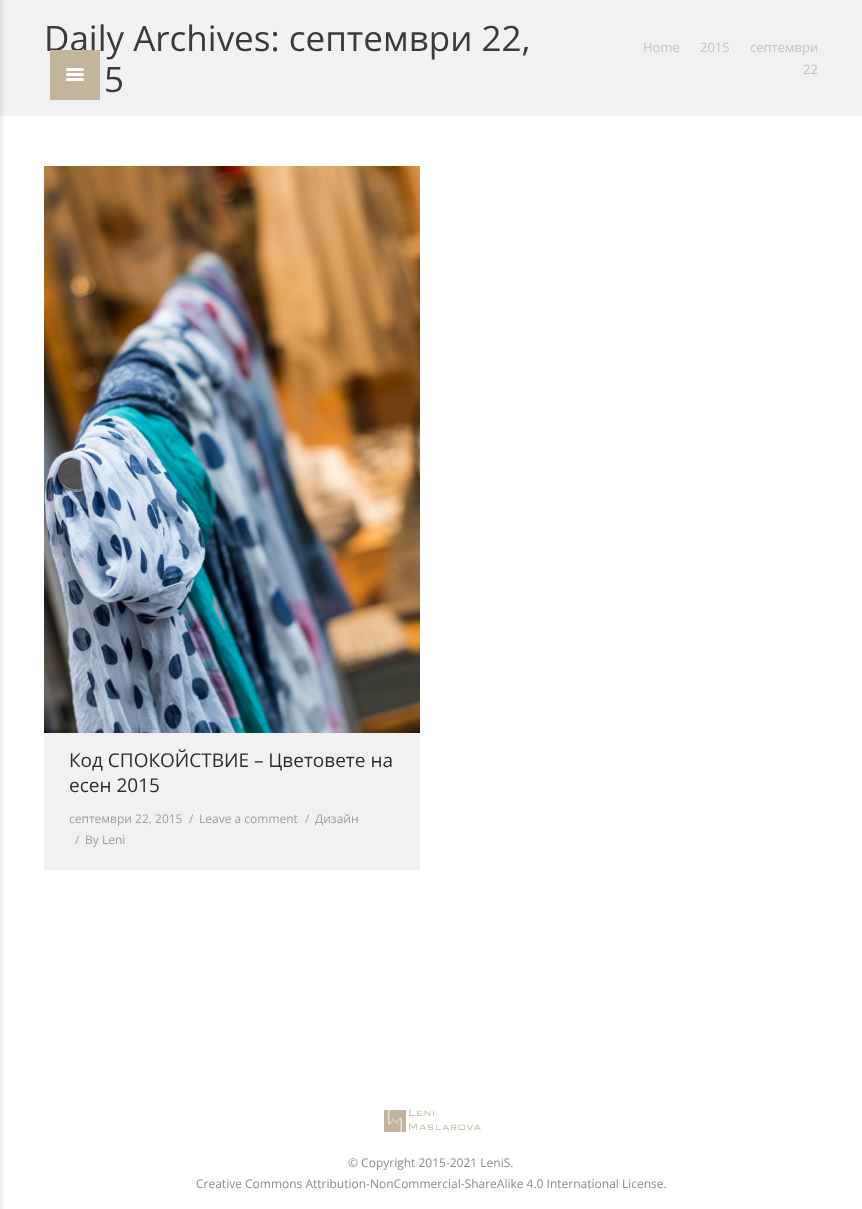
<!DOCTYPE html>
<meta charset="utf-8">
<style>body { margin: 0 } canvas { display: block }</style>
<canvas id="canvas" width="862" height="1209"></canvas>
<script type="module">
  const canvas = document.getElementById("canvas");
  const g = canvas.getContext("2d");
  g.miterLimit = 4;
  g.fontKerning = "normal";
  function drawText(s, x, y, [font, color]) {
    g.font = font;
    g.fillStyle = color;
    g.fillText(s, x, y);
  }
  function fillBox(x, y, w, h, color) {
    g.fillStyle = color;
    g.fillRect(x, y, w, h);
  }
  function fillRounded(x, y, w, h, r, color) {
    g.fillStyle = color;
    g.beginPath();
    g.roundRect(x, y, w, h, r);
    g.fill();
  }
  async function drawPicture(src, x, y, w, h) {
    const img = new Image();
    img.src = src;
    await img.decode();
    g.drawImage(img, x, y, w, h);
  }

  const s1 = ["35px Open Sans", "#3A3A3A"];
  const s2 = ["13px Open Sans", "#C4C4C4"];
  const s3 = ["19px Open Sans", "#2D2D2D"];
  const s4 = ["12px Open Sans", "#9D9D9D"];
  const s5 = ["12px Open Sans", "#8C8C8C"];

  fillBox(0, 0, 862, 1209, "#FFFFFF");
  fillBox(0, 0, 862, 116, "#F1F1F1");
  g.fillStyle = "rgba(0, 0, 0, 0.1)";
  g.filter = "blur(2px)";
  g.beginPath();
  g.rect(-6, 0, 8, 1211);
  g.fill();
  g.filter = "none";
  drawText("Daily Archives: септември 22,", 44, 51, s1);
  drawText("5", 104, 92, s1);
  drawText("Home", 643, 52, s2);
  drawText("2015", 700, 52, s2);
  drawText("септември", 750, 52, s2);
  drawText("22", 803, 74, s2);
  fillBox(44, 733, 376, 137, "#F1F1F1");
  await drawPicture("pic1.png", 44, 166, 376, 567);
  drawText("Код СПОКОЙСТВИЕ – Цветовете на", 69, 767, s3);
  drawText("есен 2015", 69, 792, s3);
  drawText("септември 22, 2015", 69, 823, s4);
  drawText("/", 189, 823, s4);
  drawText("Leave a comment", 199, 823, s4);
  drawText("/", 305, 823, s4);
  drawText("Дизайн", 315, 823, s4);
  drawText("/", 75, 844, s4);
  drawText("By Leni", 85, 844, s4);
  fillBox(50, 50, 50, 50, "#C2B59B");
  fillRounded(66, 73, 18, 3, 1.5, "#FFFFFF");
  fillRounded(66, 68, 18, 3, 1.5, "#FFFFFF");
  fillRounded(66, 78, 18, 3, 1.5, "#FFFFFF");
  await drawPicture("pic2.png", 384, 1109, 97, 23);
  drawText("© Copyright 2015-2021 LeniS.", 348, 1167, s5);
  drawText("Creative Commons Attribution-NonCommercial-ShareAlike 4.0 International License.", 196, 1188, s5);
</script>
